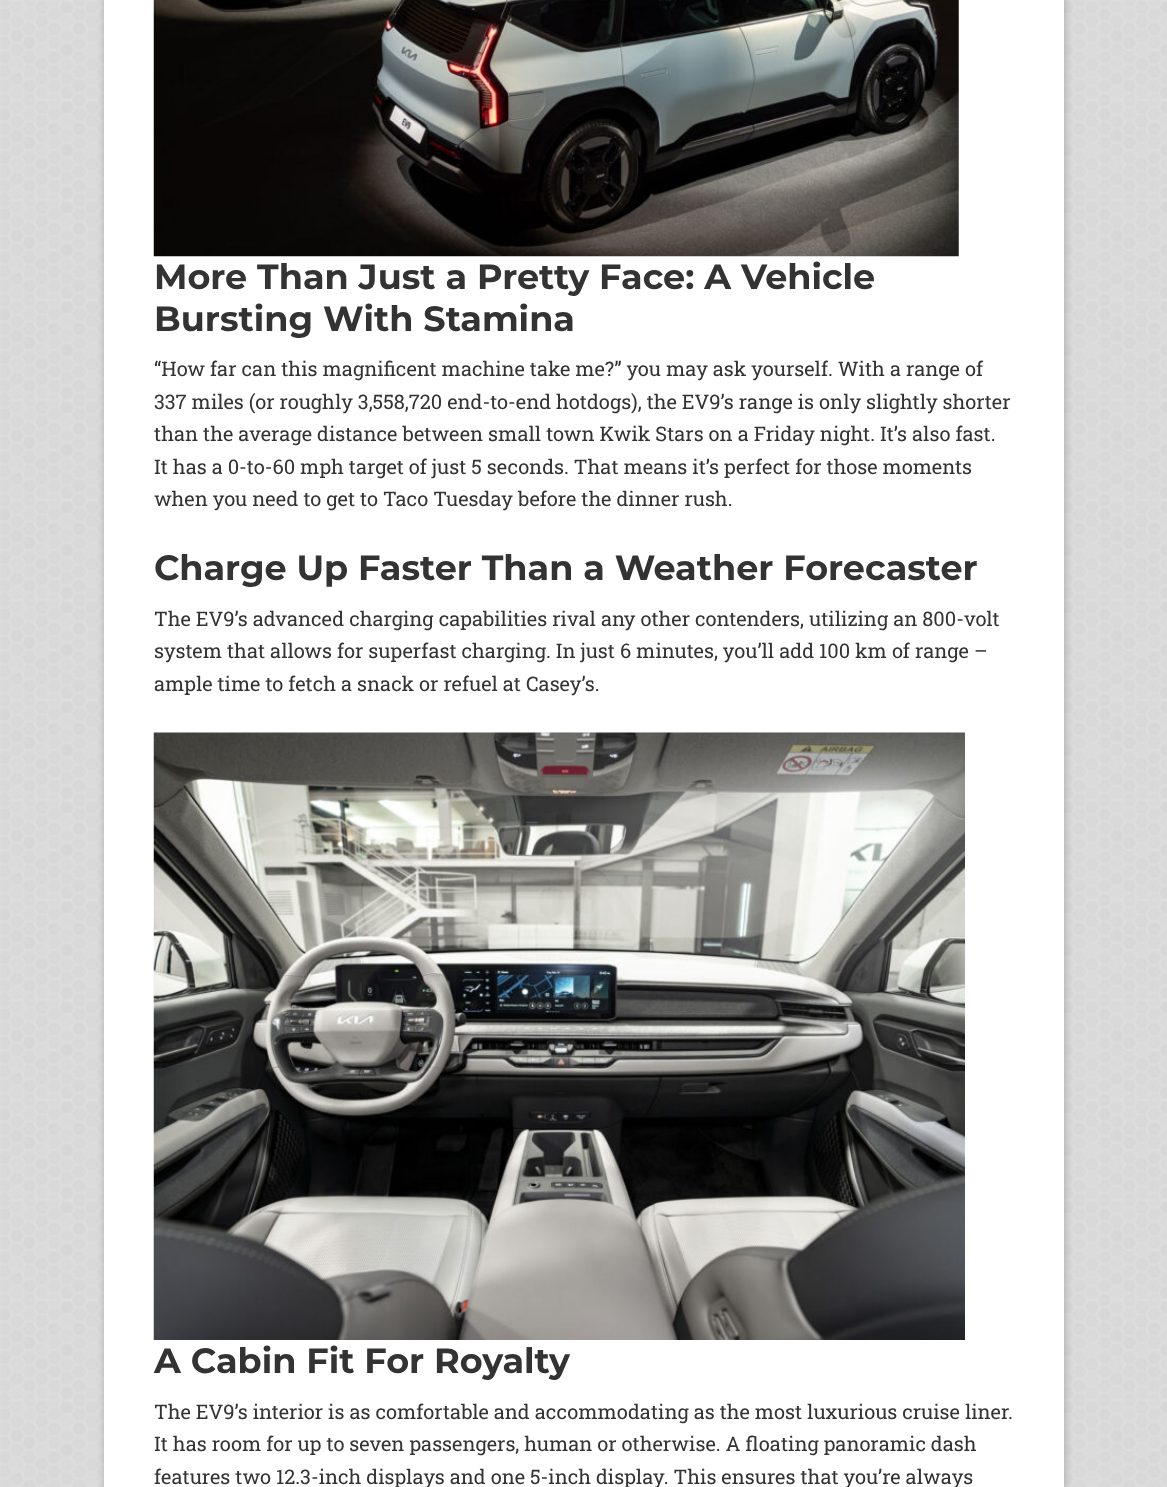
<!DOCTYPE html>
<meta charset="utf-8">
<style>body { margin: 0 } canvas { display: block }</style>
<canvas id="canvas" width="1167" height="1487"></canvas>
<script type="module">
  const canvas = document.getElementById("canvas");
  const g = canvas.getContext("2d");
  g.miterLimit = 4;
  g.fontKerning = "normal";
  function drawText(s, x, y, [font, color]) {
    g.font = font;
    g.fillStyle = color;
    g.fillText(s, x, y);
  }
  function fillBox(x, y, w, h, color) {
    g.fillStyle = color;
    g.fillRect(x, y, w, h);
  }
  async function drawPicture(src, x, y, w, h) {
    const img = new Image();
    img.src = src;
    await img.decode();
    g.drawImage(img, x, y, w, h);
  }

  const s1 = ["bold 35px Montserrat", "#333333"];
  const s2 = ["20px Roboto Slab", "#333333"];

  fillBox(0, 0, 1167, 1487, "#FFFFFF");
  await drawPicture("pic1.png", 0, 0, 1167, 1487);
  g.fillStyle = "rgba(0, 0, 0, 0.2)";
  g.filter = "blur(4px)";
  g.beginPath();
  g.roundRect(105, -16, 960, 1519, 4);
  g.fill();
  g.filter = "none";
  fillBox(104, 0, 960, 1487, "#FFFFFF");
  await drawPicture("pic2.png", 153, 0, 806, 257);
  drawText("More Than Just a Pretty Face: A Vehicle", 154, 289, s1);
  drawText("Bursting With Stamina", 154, 331, s1);
  drawText("“How far can this magnificent machine take me?” you may ask yourself. With a range of", 154, 376, s2);
  drawText("337 miles (or roughly 3,558,720 end-to-end hotdogs), the EV9’s range is only slightly shorter", 154, 409, s2);
  drawText("than the average distance between small town Kwik Stars on a Friday night. It’s also fast.", 154, 441, s2);
  drawText("It has a 0-to-60 mph target of just 5 seconds. That means it’s perfect for those moments", 154, 474, s2);
  drawText("when you need to get to Taco Tuesday before the dinner rush.", 154, 506, s2);
  drawText("Charge Up Faster Than a Weather Forecaster", 154, 580, s1);
  drawText("The EV9’s advanced charging capabilities rival any other contenders, utilizing an 800-volt", 154, 626, s2);
  drawText("system that allows for superfast charging. In just 6 minutes, you’ll add 100 km of range –", 154, 658, s2);
  drawText("ample time to fetch a snack or refuel at Casey’s.", 154, 691, s2);
  await drawPicture("pic3.png", 153, 732, 812, 608);
  drawText("A Cabin Fit For Royalty", 154, 1373, s1);
  drawText("The EV9’s interior is as comfortable and accommodating as the most luxurious cruise liner.", 154, 1419, s2);
  drawText("It has room for up to seven passengers, human or otherwise. A floating panoramic dash", 154, 1451, s2);
  drawText("features two 12.3-inch displays and one 5-inch display. This ensures that you’re always", 154, 1484, s2);
</script>
